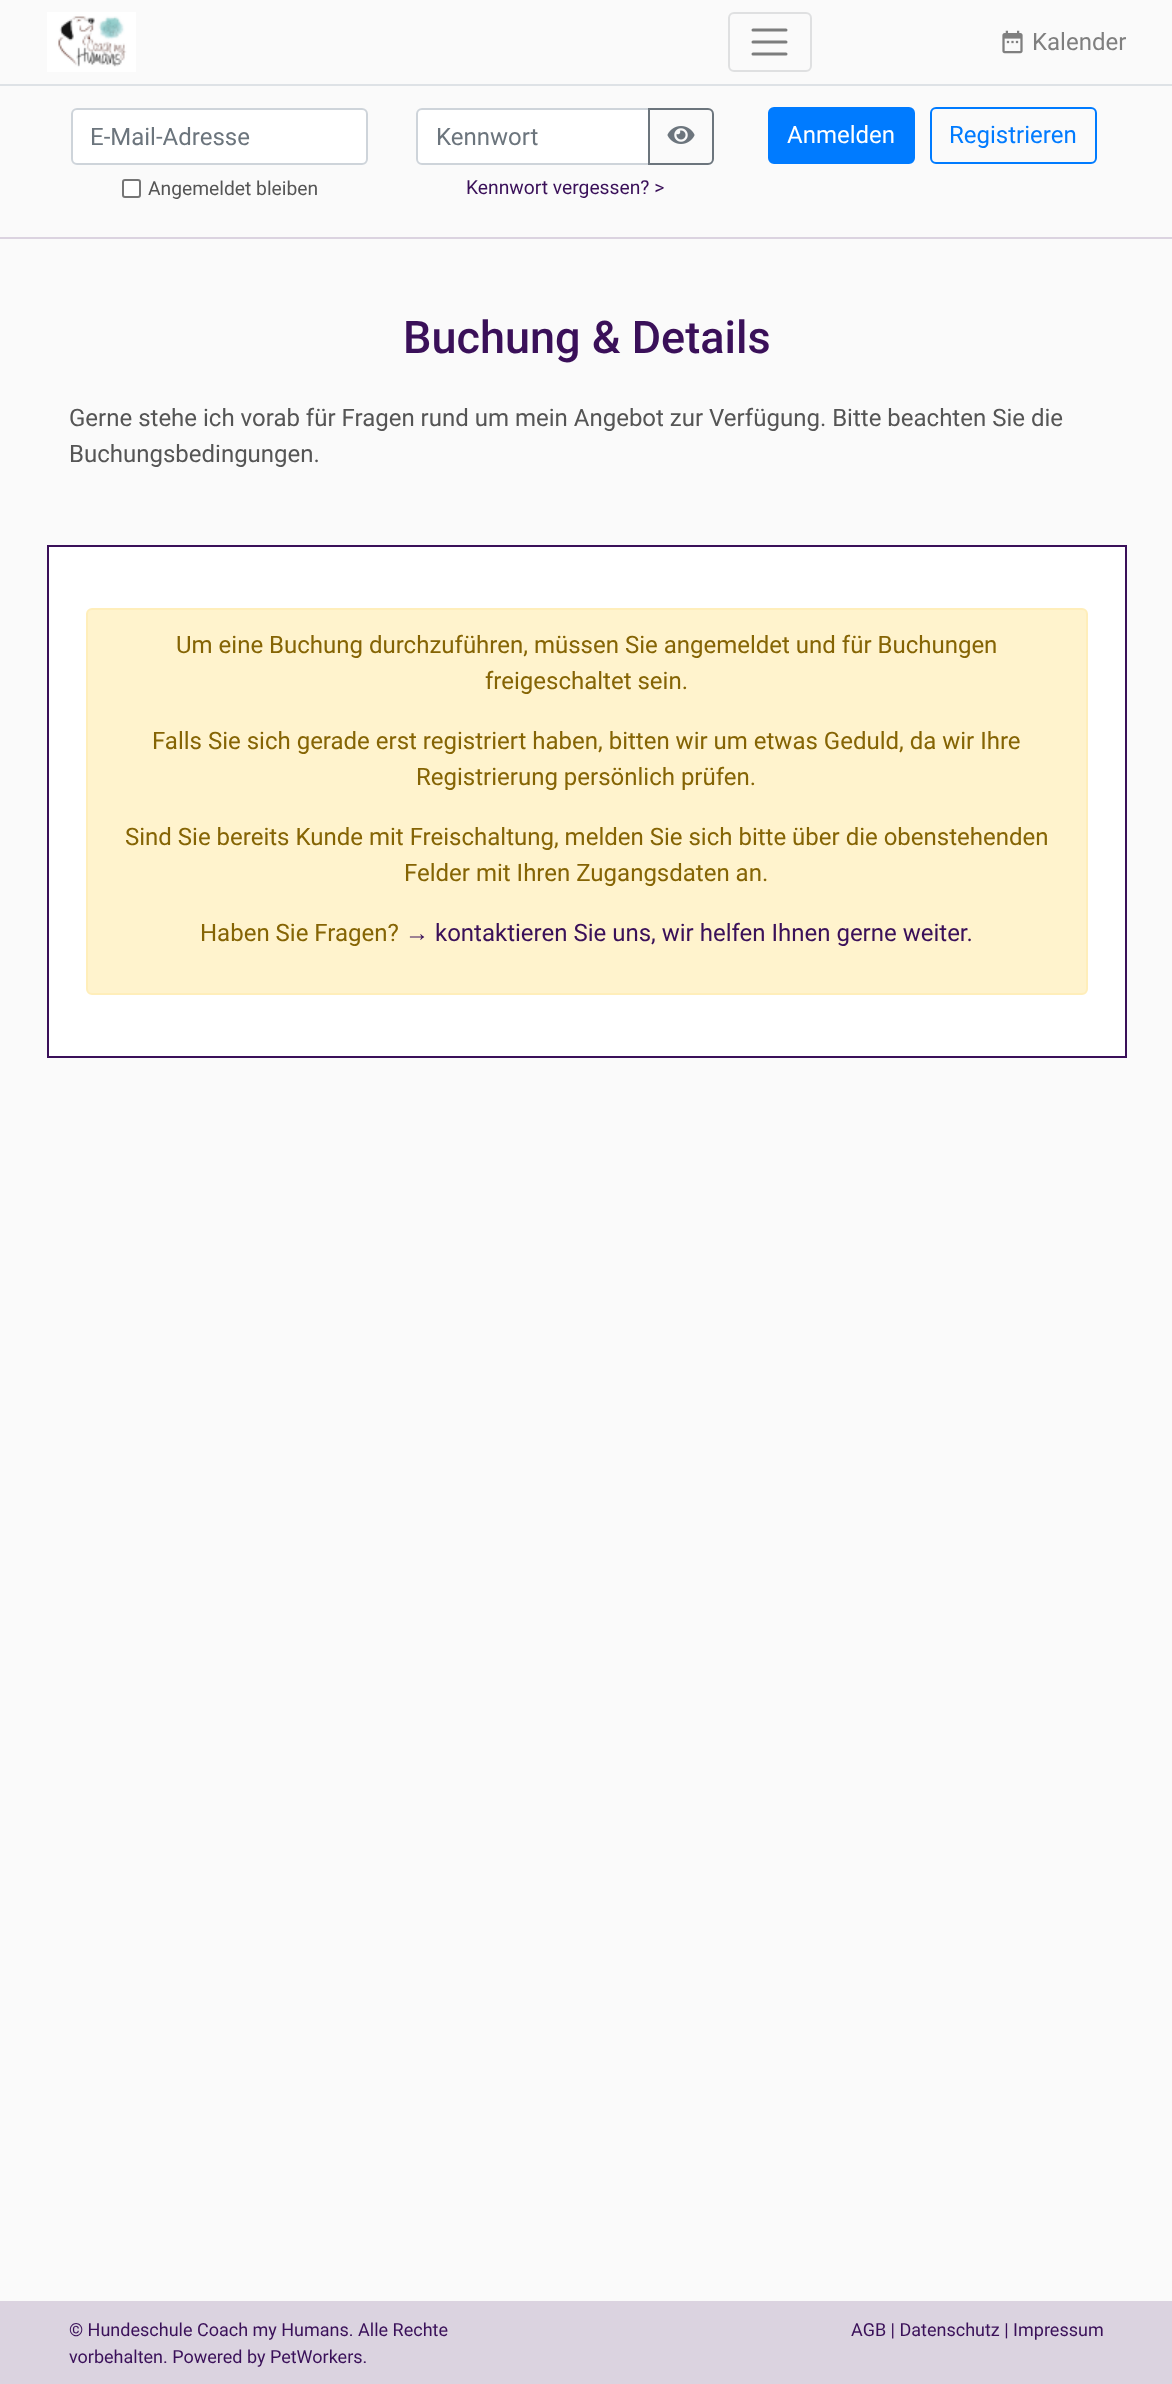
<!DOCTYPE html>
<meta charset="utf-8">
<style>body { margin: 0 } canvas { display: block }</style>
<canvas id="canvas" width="1172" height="2384"></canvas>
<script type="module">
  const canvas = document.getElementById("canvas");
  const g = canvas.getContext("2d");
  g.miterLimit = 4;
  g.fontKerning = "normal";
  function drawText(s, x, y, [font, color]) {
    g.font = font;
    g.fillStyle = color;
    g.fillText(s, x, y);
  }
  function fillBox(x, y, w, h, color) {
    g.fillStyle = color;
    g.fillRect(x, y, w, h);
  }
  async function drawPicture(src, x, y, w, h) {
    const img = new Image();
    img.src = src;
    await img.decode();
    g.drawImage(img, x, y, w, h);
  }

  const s1 = ["24px Roboto", "#7F7F7F"];
  const s2 = ["24px Roboto", "#6C757D"];
  const s3 = ["19.25px Roboto", "#555555"];
  const s4 = ["19.25px Roboto", "#3A1059"];
  const s5 = ["24px Roboto", "#FFFFFF"];
  const s6 = ["24px Roboto", "#007BFF"];
  const s7 = ["500 45px Roboto", "#3A1059"];
  const s8 = ["24px Roboto", "#555555"];
  const s9 = ["24px Roboto", "#856404"];
  const s10 = ["24px Liberation Sans", "#3A1059"];
  const s11 = ["24px Roboto", "#3A1059"];
  const s12 = ["18px Roboto", "#3A1059"];

  fillBox(0, 0, 1172, 2384, "#FAFAFA");
  fillBox(0, 84, 1172, 2, "#DEE2E6");
  await drawPicture("pic1.png", 47, 12, 89, 60);
  g.beginPath();
  g.roundRect(729, 13, 82, 58, 5);
  g.strokeStyle = "#DFE0E1";
  g.lineWidth = 2;
  g.stroke();
  g.beginPath();
  g.moveTo(753, 30);
  g.lineTo(786, 30);
  g.moveTo(753, 42);
  g.lineTo(786, 42);
  g.moveTo(753, 54);
  g.lineTo(786, 54);
  g.strokeStyle = "#7C7D7D";
  g.lineWidth = 3;
  g.lineCap = "round";
  g.stroke();
  await drawPicture("pic2.png", 1002, 30, 21, 24);
  drawText("Kalender", 1032, 50, s1);
  fillBox(0, 237, 1172, 2, "#DBD3E0");
  g.fillStyle = "#FFFFFF";
  g.beginPath();
  g.roundRect(72, 109, 295, 55, 5);
  g.fill();
  g.strokeStyle = "#CED4DA";
  g.lineWidth = 2;
  g.stroke();
  drawText("E-Mail-Adresse", 90, 145, s2);
  g.fillStyle = "#FFFFFF";
  g.beginPath();
  g.roundRect(123, 180, 17, 17, 2);
  g.fill();
  g.strokeStyle = "#767676";
  g.stroke();
  drawText("Angemeldet bleiben", 148, 195, s3);
  g.fillStyle = "#FFFFFF";
  g.beginPath();
  g.roundRect(417, 109, 232, 55, [5, 0, 0, 5]);
  g.fill();
  g.strokeStyle = "#CED4DA";
  g.stroke();
  drawText("Kennwort", 436, 145, s2);
  g.beginPath();
  g.roundRect(649, 109, 64, 55, [0, 5, 5, 0]);
  g.strokeStyle = "#6C757D";
  g.stroke();
  await drawPicture("pic3.png", 667, 126, 28, 18);
  drawText("Kennwort vergessen? >", 466, 194, s4);
  g.fillStyle = "#007BFF";
  g.beginPath();
  g.roundRect(769, 108, 145, 55, 5);
  g.fill();
  g.strokeStyle = "#007BFF";
  g.stroke();
  drawText("Anmelden", 787, 143, s5);
  g.beginPath();
  g.roundRect(931, 108, 165, 55, 5);
  g.stroke();
  drawText("Registrieren", 949, 143, s6);
  drawText("Buchung & Details", 403, 353, s7);
  drawText("Gerne stehe ich vorab für Fragen rund um mein Angebot zur Verfügung. Bitte beachten Sie die", 69, 426, s8);
  drawText("Buchungsbedingungen.", 69, 462, s8);
  g.fillStyle = "#FFFFFF";
  g.beginPath();
  g.rect(48, 546, 1078, 511);
  g.fill();
  g.strokeStyle = "#3A1059";
  g.stroke();
  g.fillStyle = "#FFF3CD";
  g.beginPath();
  g.roundRect(87, 609, 1000, 385, 5);
  g.fill();
  g.strokeStyle = "#FFEEBA";
  g.stroke();
  drawText("Um eine Buchung durchzuführen, müssen Sie angemeldet und für Buchungen", 176, 653, s9);
  drawText("freigeschaltet sein.", 485, 689, s9);
  drawText("Falls Sie sich gerade erst registriert haben, bitten wir um etwas Geduld, da wir Ihre", 152, 749, s9);
  drawText("Registrierung persönlich prüfen.", 416, 785, s9);
  drawText("Sind Sie bereits Kunde mit Freischaltung, melden Sie sich bitte über die obenstehenden", 125, 845, s9);
  drawText("Felder mit Ihren Zugangsdaten an.", 404, 881, s9);
  drawText("Haben Sie Fragen?", 200, 941, s9);
  drawText("→", 405, 941, s10);
  drawText("kontaktieren Sie uns, wir helfen Ihnen gerne weiter.", 435, 941, s11);
  fillBox(0, 2301, 1172, 83, "#DBD3E0");
  drawText("© Hundeschule Coach my Humans. Alle Rechte", 69, 2336, s12);
  drawText("vorbehalten. Powered by PetWorkers.", 69, 2363, s12);
  drawText("AGB | Datenschutz | Impressum", 851, 2336, s12);
</script>
